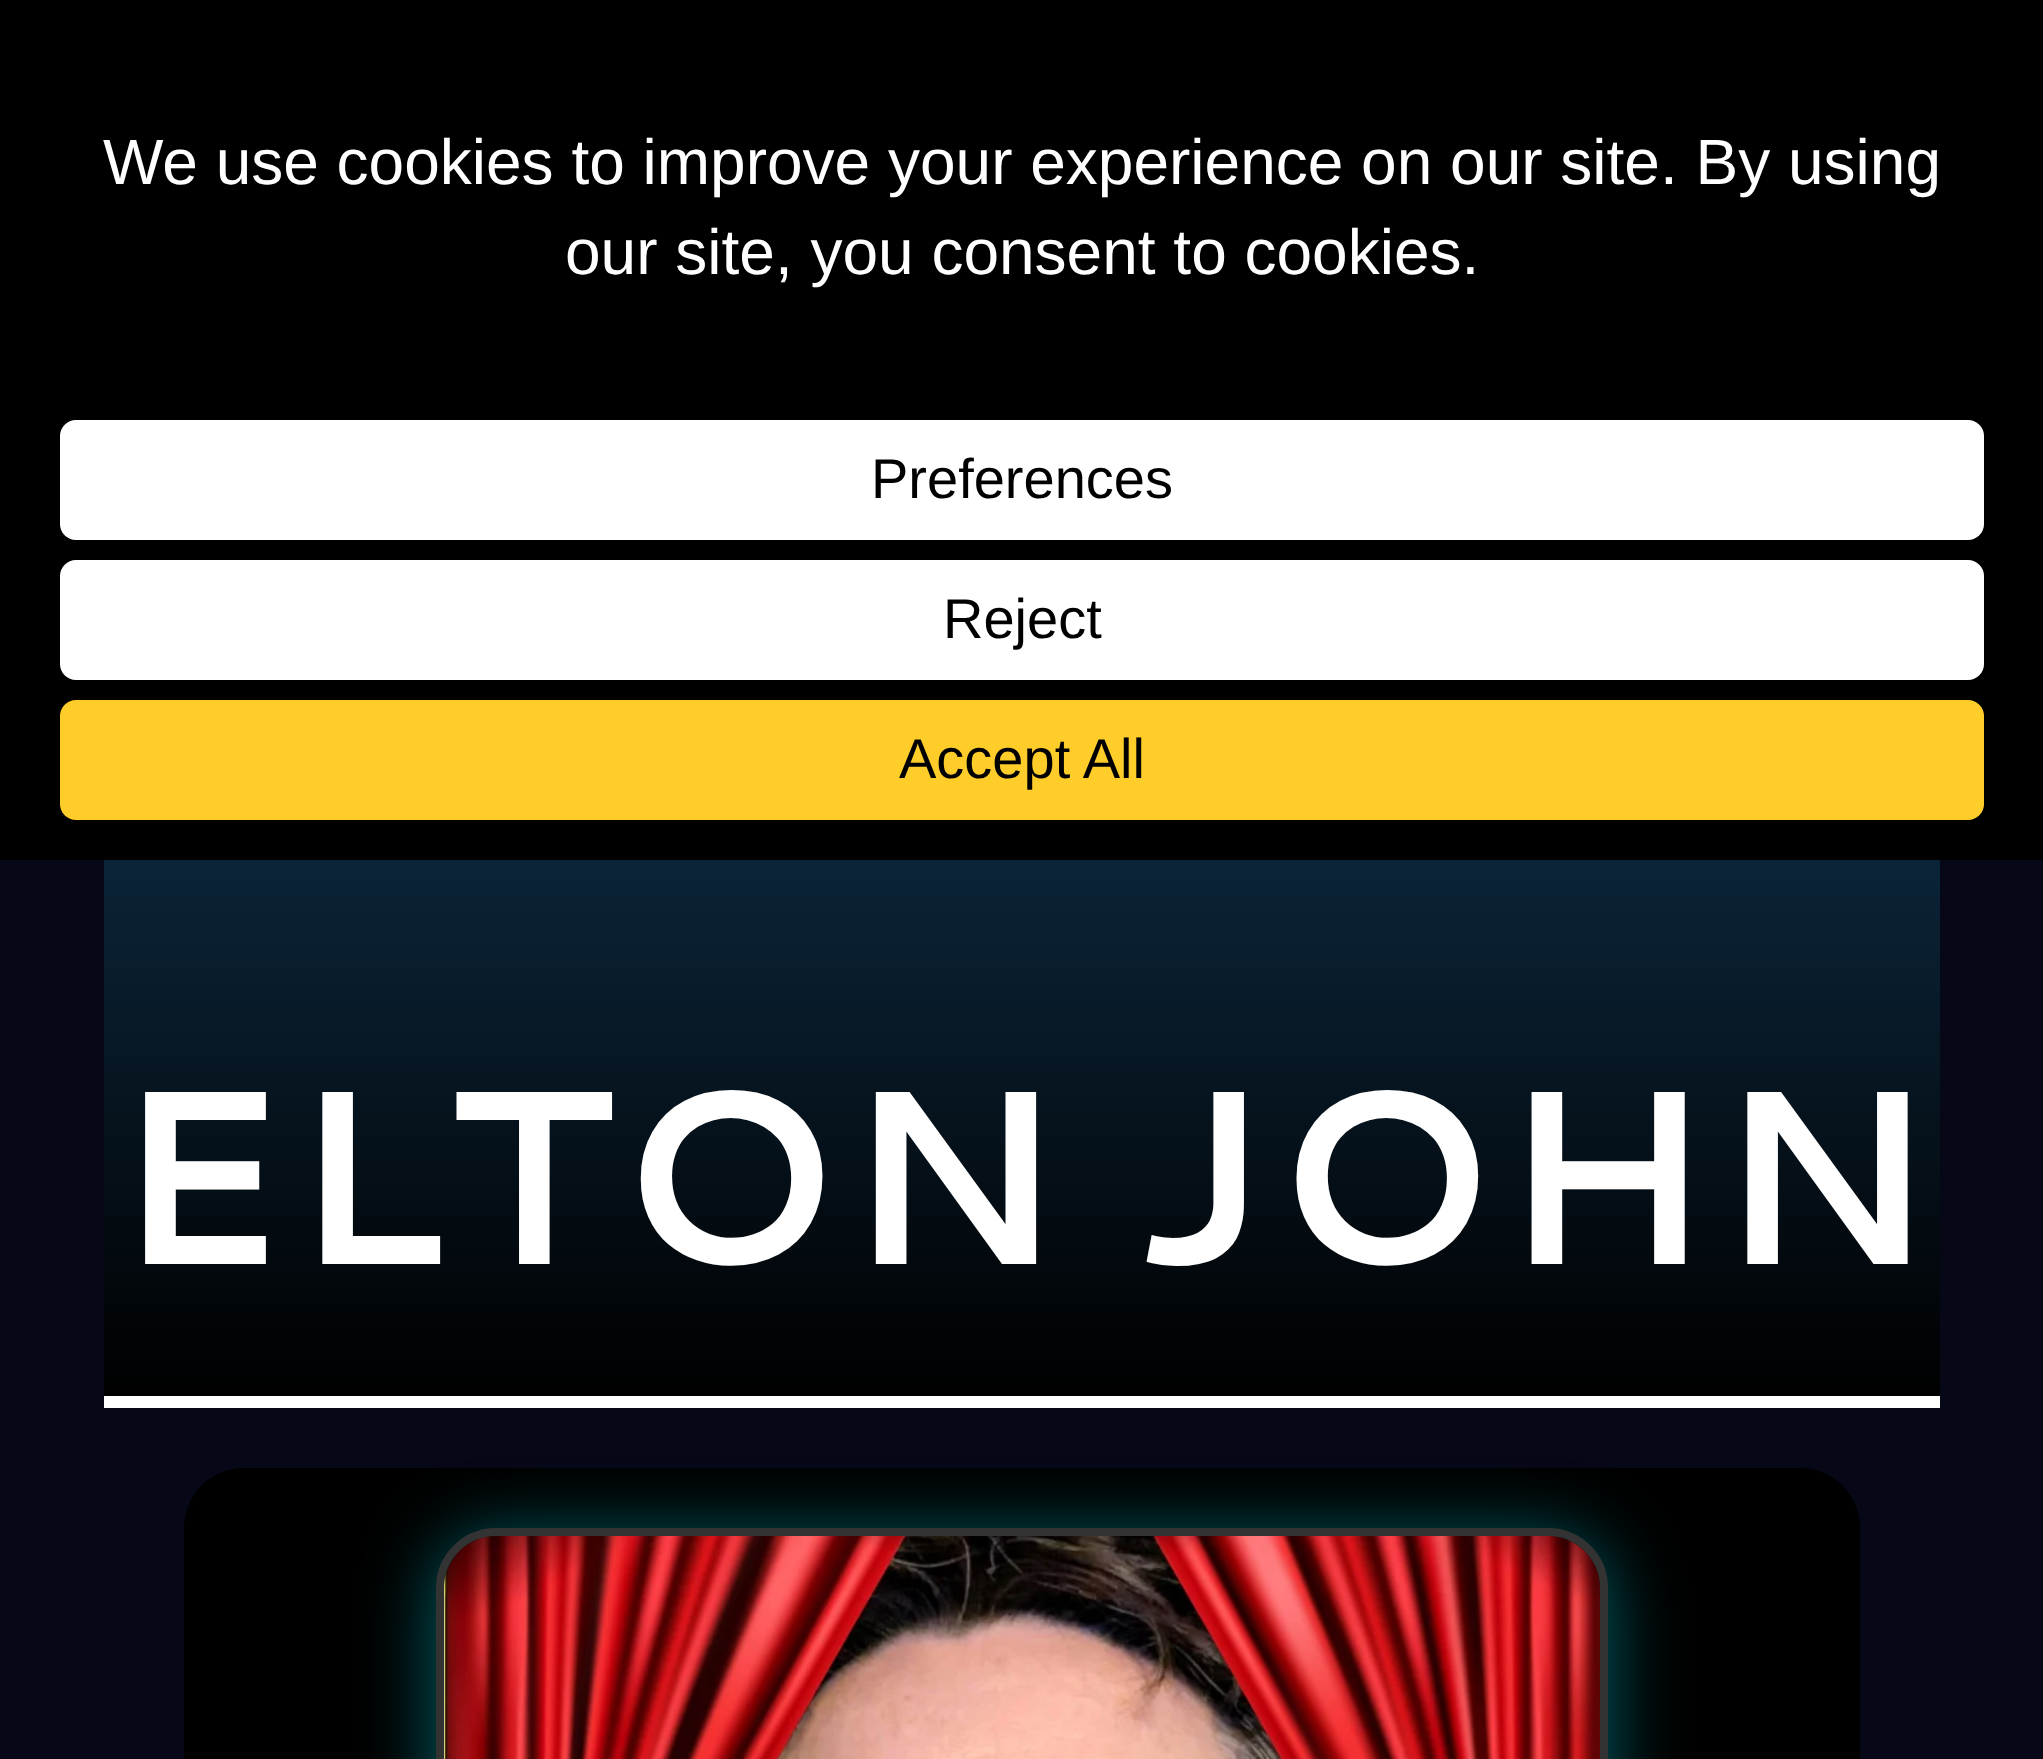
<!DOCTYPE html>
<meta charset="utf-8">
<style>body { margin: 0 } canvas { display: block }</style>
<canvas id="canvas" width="2043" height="1759"></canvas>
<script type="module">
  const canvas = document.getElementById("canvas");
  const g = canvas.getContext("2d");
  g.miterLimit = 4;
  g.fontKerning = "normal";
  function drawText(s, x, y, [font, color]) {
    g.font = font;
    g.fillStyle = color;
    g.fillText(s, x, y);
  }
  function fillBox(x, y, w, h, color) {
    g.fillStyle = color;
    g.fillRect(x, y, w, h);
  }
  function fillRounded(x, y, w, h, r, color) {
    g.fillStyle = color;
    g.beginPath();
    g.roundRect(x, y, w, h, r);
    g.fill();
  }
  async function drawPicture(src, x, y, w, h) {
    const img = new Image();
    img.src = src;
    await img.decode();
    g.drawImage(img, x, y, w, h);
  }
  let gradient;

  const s1 = ["64px Liberation Sans", "#FFFFFF"];
  const s2 = ["56px Liberation Sans", "#000000"];
  const s3 = ["bold 248px Cantarell", "#FFFFFF"];

  fillBox(0, 0, 2043, 1759, "#060717");
  fillBox(0, 0, 2043, 860, "#000000");
  drawText("We use cookies to improve your experience on our site. By using", 103, 184, s1);
  drawText("our site, you consent to cookies.", 565, 274, s1);
  fillRounded(60, 420, 1924, 120, 16, "#FFFFFF");
  drawText("Preferences", 871, 498, s2);
  fillRounded(60, 560, 1924, 120, 16, "#FFFFFF");
  drawText("Reject", 943, 638, s2);
  fillRounded(60, 700, 1924, 120, 16, "#FFCD2A");
  drawText("Accept All", 899, 778, s2);
  gradient = g.createLinearGradient(1022, 612, 1022, 1396);
  gradient.addColorStop(0, "#103552");
  gradient.addColorStop(1, "#000000");
  g.fillStyle = gradient;
  g.fillRect(104, 860, 1836, 536);
  fillBox(104, 1396, 1836, 12, "#FFFFFF");
  g.letterSpacing = "2px";
  drawText("ELTON JOHN", 110, 1264, s3);
  fillRounded(184, 1468, 1676, 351, 60, "#000000");
  g.fillStyle = "rgba(1, 237, 252, 0.41)";
  g.filter = "blur(36px)";
  g.beginPath();
  g.roundRect(436, 1536, 1172, 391, 60);
  g.fill();
  g.filter = "none";
  g.beginPath();
  g.roundRect(440, 1532, 1164, 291, 56);
  g.strokeStyle = "#333333";
  g.lineWidth = 8;
  g.stroke();
  await drawPicture("pic1.png", 444, 1536, 1156, 223);
</script>
